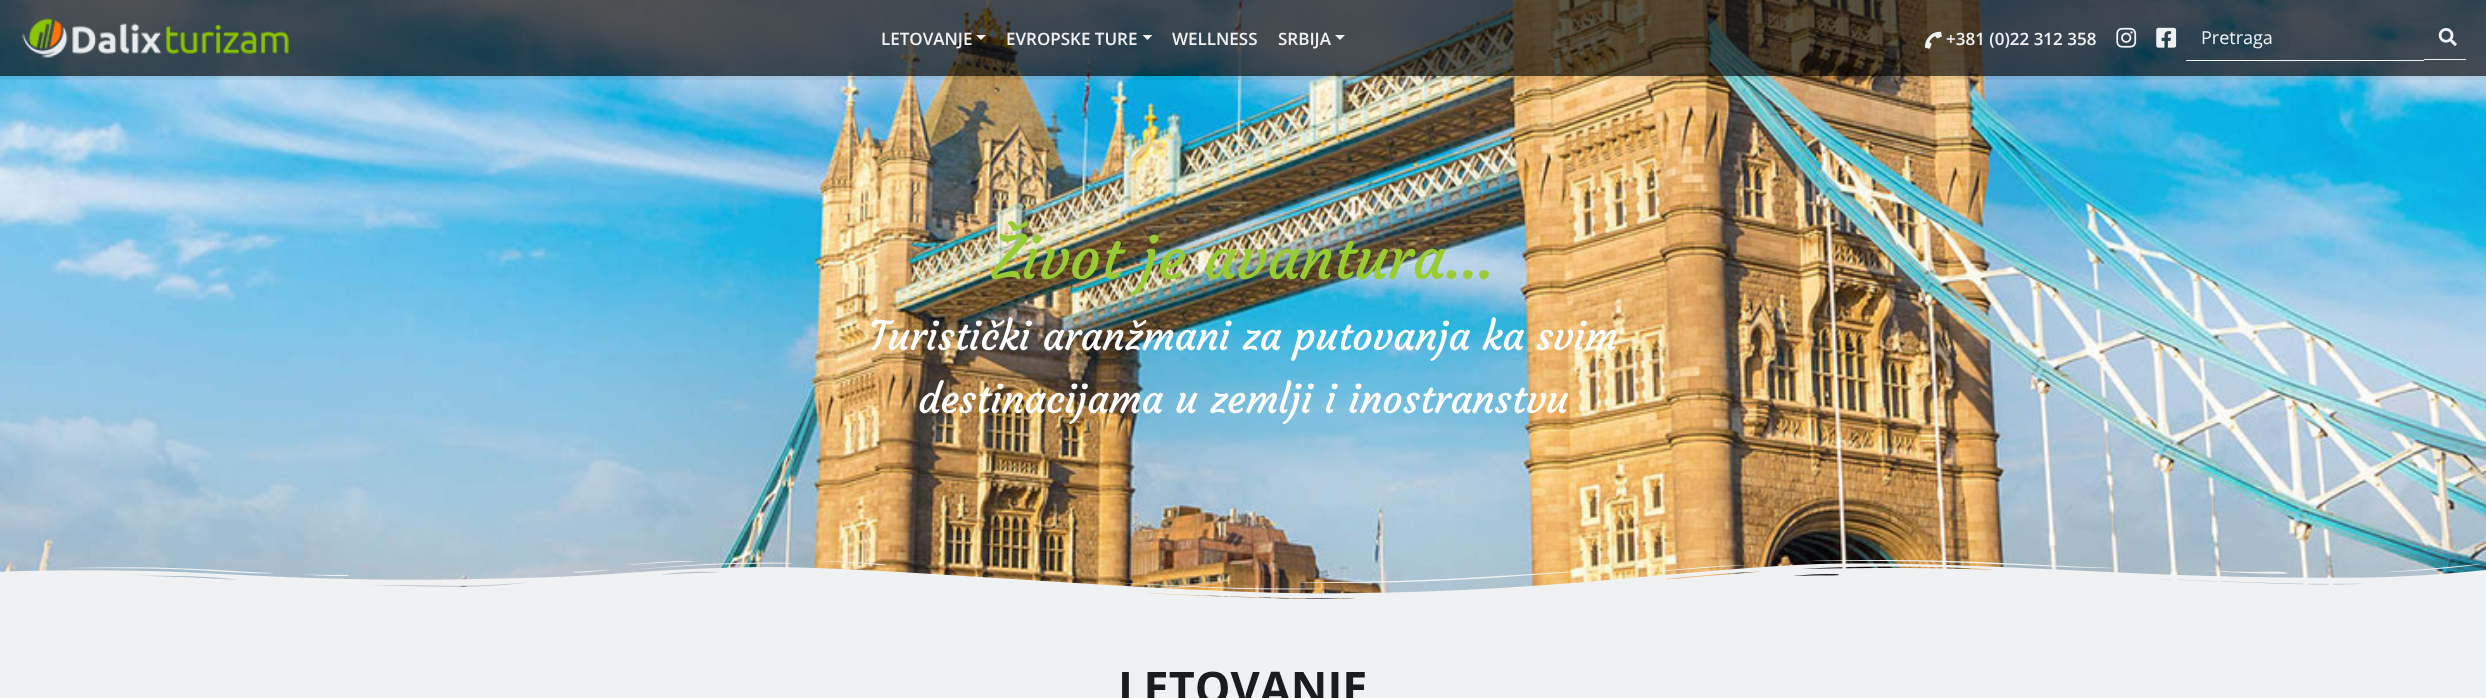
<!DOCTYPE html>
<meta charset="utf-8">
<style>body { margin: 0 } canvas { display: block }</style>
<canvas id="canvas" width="2486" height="698"></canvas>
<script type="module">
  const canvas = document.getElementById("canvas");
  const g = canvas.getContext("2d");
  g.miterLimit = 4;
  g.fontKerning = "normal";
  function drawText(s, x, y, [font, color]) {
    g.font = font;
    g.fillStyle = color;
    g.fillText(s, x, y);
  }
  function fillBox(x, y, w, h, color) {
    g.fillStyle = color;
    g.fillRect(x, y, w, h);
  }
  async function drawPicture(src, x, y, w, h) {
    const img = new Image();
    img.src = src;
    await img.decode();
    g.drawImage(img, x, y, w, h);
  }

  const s1 = ["600 17px Open Sans", "#F0F1F3"];
  const s2 = ["18px Open Sans", "#F0F1F3"];
  const s3 = ["60px Courgette", "#99CC33"];
  const s4 = ["40px Courgette", "#FFFFFF"];
  const s5 = ["bold 45px Open Sans", "#1A1D20"];

  fillBox(0, 0, 2486, 698, "#F0F1F3");
  await drawPicture("pic1.png", 0, 0, 2486, 599);
  g.save();
  g.beginPath();
  g.rect(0, 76, 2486, 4);
  g.clip();
  g.fillStyle = "rgba(3, 4, 4, 0.07)";
  g.filter = "blur(2.5px)";
  g.beginPath();
  g.rect(0, 3, 2486, 76);
  g.fill();
  g.filter = "none";
  g.restore();
  fillBox(0, 0, 2486, 76, "rgba(0, 0, 0, 0.66)");
  await drawPicture("pic2.png", 22, 18, 267, 40);
  drawText("LETOVANJE", 881, 45, s1);
  g.beginPath();
  g.moveTo(976, 35);
  g.lineTo(986, 35);
  g.lineTo(981, 40);
  g.closePath();
  g.fill();
  drawText("EVROPSKE TURE", 1006, 45, s1);
  g.beginPath();
  g.moveTo(1142.5, 35);
  g.lineTo(1152.5, 35);
  g.lineTo(1147.5, 40);
  g.closePath();
  g.fill();
  drawText("WELLNESS", 1172, 45, s1);
  drawText("SRBIJA", 1278, 45, s1);
  g.beginPath();
  g.moveTo(1335, 35);
  g.lineTo(1345, 35);
  g.lineTo(1340, 40);
  g.closePath();
  g.fill();
  await drawPicture("pic3.png", 1924, 31, 18, 18);
  drawText("+381 (0)22 312 358", 1946, 45, s1);
  await drawPicture("pic4.png", 2116, 27, 21, 21);
  await drawPicture("pic5.png", 2156, 27, 21, 21);
  fillBox(2186, 60, 238, 1, "#F0F1F3");
  drawText("Pretraga", 2201, 44, s2);
  fillBox(2424, 59, 42, 1, "#F0F1F3");
  await drawPicture("pic6.png", 2438, 28, 19, 18);
  drawText("Život je avantura...", 992, 279, s3);
  drawText("Turistički aranžmani za putovanja ka svim", 869, 350, s4);
  drawText("destinacijama u zemlji i inostranstvu", 918, 413, s4);
  await drawPicture("pic7.png", 0, 560, 2486, 40);
  drawText("LETOVANJE", 1118, 704, s5);
</script>
